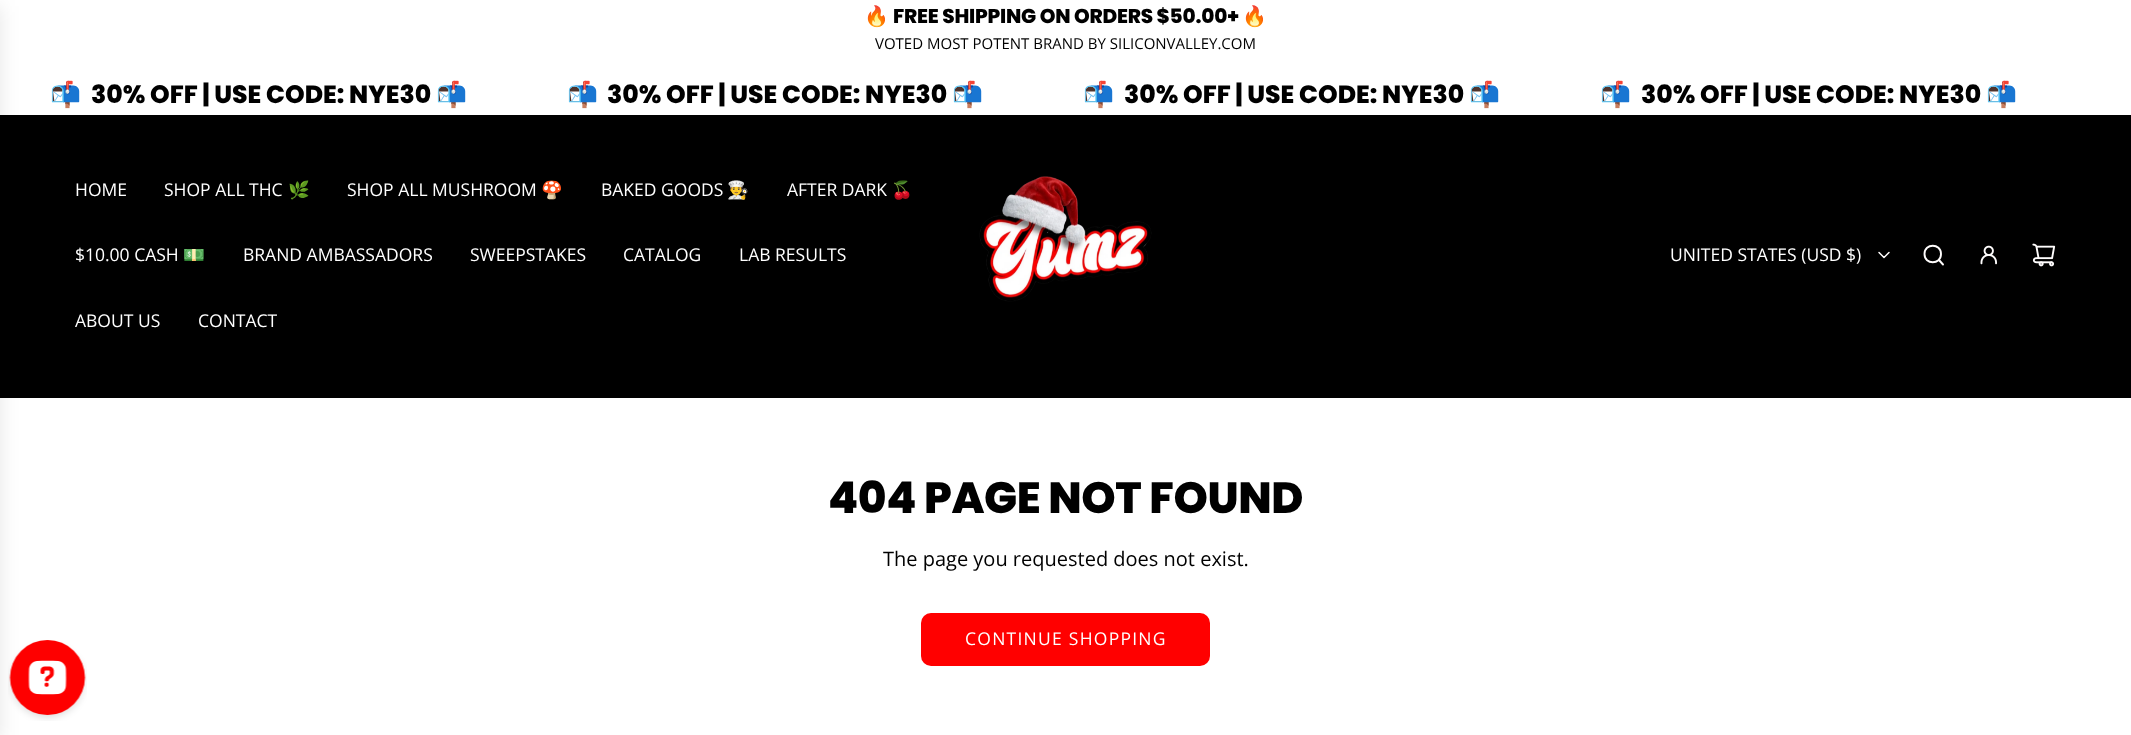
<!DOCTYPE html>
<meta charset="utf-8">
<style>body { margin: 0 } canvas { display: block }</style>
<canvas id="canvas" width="2131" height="735"></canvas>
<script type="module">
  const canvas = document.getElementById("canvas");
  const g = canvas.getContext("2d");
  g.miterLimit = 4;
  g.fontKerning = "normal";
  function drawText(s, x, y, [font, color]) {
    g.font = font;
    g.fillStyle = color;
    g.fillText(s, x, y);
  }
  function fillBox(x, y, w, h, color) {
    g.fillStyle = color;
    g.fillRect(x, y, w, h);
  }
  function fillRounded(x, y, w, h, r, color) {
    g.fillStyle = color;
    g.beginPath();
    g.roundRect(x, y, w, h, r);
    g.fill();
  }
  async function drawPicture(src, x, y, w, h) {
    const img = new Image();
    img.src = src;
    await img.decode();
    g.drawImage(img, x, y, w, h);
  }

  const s1 = ["bold 20px Noto Color Emoji", "#000000"];
  const s2 = ["800 20px Poppins", "#000000"];
  const s3 = ["15px Open Sans", "#000000"];
  const s4 = ["25px Noto Color Emoji", "#000000"];
  const s5 = ["800 25px Poppins", "#000000"];
  const s6 = ["17.5px Open Sans", "#FFFFFF"];
  const s7 = ["17.5px Noto Color Emoji", "#FFFFFF"];
  const s8 = ["800 43.75px Poppins", "#000000"];
  const s9 = ["20px Open Sans", "#000000"];

  fillBox(0, 0, 2131, 735, "#FFFFFF");
  g.letterSpacing = "-0.2px";
  drawText("🔥", 864, 23, s1);
  drawText("FREE SHIPPING ON ORDERS $50.00+", 893, 23, s2);
  drawText("🔥", 1242, 23, s1);
  g.letterSpacing = "0px";
  drawText("VOTED MOST POTENT BRAND BY SILICONVALLEY.COM", 875, 49, s3);
  drawText("📬", 50, 103, s4);
  drawText("30% OFF | USE CODE: NYE30", 91, 103, s5);
  drawText("📬", 436, 103, s4);
  drawText("📬", 567, 103, s4);
  drawText("30% OFF | USE CODE: NYE30", 607, 103, s5);
  drawText("📬", 952, 103, s4);
  drawText("📬", 1083, 103, s4);
  drawText("30% OFF | USE CODE: NYE30", 1124, 103, s5);
  drawText("📬", 1469, 103, s4);
  drawText("📬", 1600, 103, s4);
  drawText("30% OFF | USE CODE: NYE30", 1641, 103, s5);
  drawText("📬", 1986, 103, s4);
  fillBox(0, 115, 2131, 283, "#000000");
  g.fillStyle = "rgba(0, 0, 0, 0.1)";
  g.filter = "blur(9.5px)";
  g.beginPath();
  g.rect(-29, 6, 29, 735);
  g.fill();
  g.filter = "none";
  drawText("HOME", 75, 196, s6);
  drawText("SHOP ALL THC", 164, 196, s6);
  drawText("🌿", 288, 196, s7);
  drawText("SHOP ALL MUSHROOM", 347, 196, s6);
  drawText("🍄", 541, 196, s7);
  drawText("BAKED GOODS", 601, 196, s6);
  drawText("👨‍🍳", 727, 196, s7);
  drawText("AFTER DARK", 787, 196, s6);
  drawText("🍒", 891, 196, s7);
  drawText("$10.00 CASH", 75, 261, s6);
  drawText("💵", 183, 261, s7);
  drawText("BRAND AMBASSADORS", 243, 261, s6);
  drawText("SWEEPSTAKES", 470, 261, s6);
  drawText("CATALOG", 623, 261, s6);
  drawText("LAB RESULTS", 739, 261, s6);
  drawText("ABOUT US", 75, 327, s6);
  drawText("CONTACT", 198, 327, s6);
  await drawPicture("pic1.png", 979, 176, 173, 126);
  drawText("UNITED STATES (USD $)", 1670, 261, s6);
  g.beginPath();
  g.moveTo(1879, 252.5);
  g.lineTo(1884, 257.5);
  g.lineTo(1889, 252.5);
  g.strokeStyle = "#FFFDFD";
  g.lineWidth = 1.5;
  g.lineCap = "round";
  g.lineJoin = "round";
  g.stroke();
  g.beginPath();
  g.moveTo(1939, 260);
  g.lineTo(1943, 264.5);
  g.moveTo(1924.5, 254);
  g.bezierCurveTo(1924.5, 265, 1941, 265, 1941, 254);
  g.bezierCurveTo(1941, 243, 1924.5, 243, 1924.5, 254);
  g.closePath();
  g.lineWidth = 1.9;
  g.stroke();
  await drawPicture("pic2.png", 1980, 245, 17, 20);
  await drawPicture("pic3.png", 2032, 243, 24, 24);
  g.letterSpacing = "-0.4px";
  drawText("404 PAGE NOT FOUND", 828, 513, s8);
  g.letterSpacing = "0px";
  drawText("The page you requested does not exist.", 883, 566, s9);
  fillRounded(921, 613, 289, 53, 10, "#FF0000");
  g.letterSpacing = "1.25px";
  drawText("CONTINUE SHOPPING", 965, 645, s6);
  await drawPicture("pic4.png", 8, 640, 79, 81);
</script>
